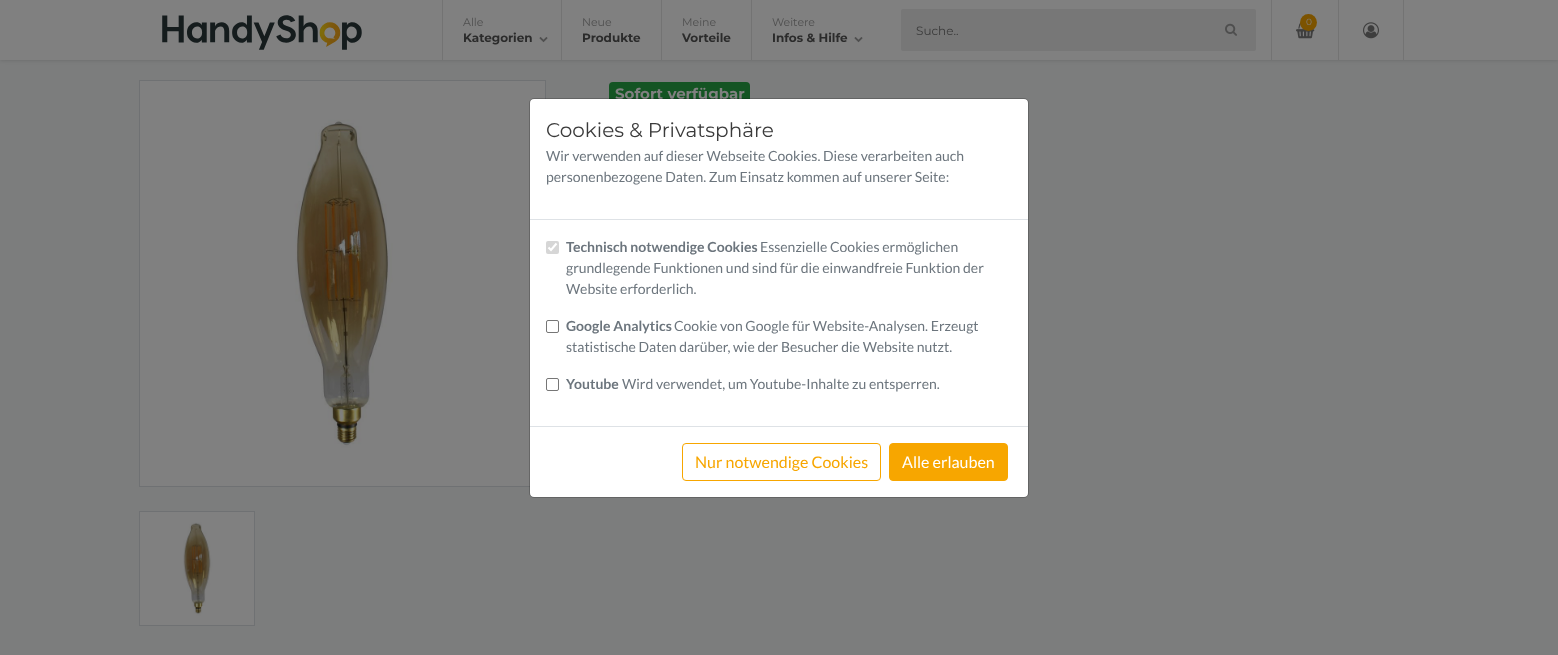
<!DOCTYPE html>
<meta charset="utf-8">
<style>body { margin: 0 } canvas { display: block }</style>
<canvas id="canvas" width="1558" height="655"></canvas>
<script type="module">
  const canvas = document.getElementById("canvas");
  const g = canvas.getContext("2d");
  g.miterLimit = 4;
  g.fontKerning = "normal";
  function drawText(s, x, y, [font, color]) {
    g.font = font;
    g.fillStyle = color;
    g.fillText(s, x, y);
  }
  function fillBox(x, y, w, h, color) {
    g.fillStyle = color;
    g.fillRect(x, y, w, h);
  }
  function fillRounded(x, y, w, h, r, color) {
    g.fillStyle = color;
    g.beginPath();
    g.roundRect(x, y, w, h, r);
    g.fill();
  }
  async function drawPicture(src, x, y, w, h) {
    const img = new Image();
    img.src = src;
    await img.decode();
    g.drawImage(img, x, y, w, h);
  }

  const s1 = ["11px Montserrat", "#4F4F4F"];
  const s2 = ["bold 12px Montserrat", "#2B2B2B"];
  const s3 = ["9px Montserrat", "#808080"];
  const s4 = ["12px Montserrat", "#3B3B3B"];
  const s5 = ["bold 15px Montserrat", "#808080"];
  const s6 = ["20px Montserrat", "#3B3B3B"];
  const s7 = ["14px Lato", "#6C757D"];
  const s8 = ["bold 14px Lato", "#6C757D"];
  const s9 = ["16px Lato", "#F7A600"];
  const s10 = ["16px Lato", "#FFFFFF"];

  fillBox(0, 0, 1558, 655, "#7C7D7D");
  g.fillStyle = "rgba(0, 0, 0, 0.16)";
  g.filter = "blur(2px)";
  g.beginPath();
  g.rect(0, 0, 1558, 60);
  g.fill();
  g.filter = "none";
  fillBox(0, 0, 1558, 60, "#808080");
  await drawPicture("pic1.png", 162, 15, 200, 35);
  fillBox(442, 0, 1, 60, "#737373");
  drawText("Alle", 463, 26, s1);
  drawText("Kategorien", 463, 42, s2);
  await drawPicture("pic2.png", 539, 37, 9, 6);
  fillBox(561, 0, 1, 60, "#737373");
  drawText("Neue", 582, 26, s1);
  drawText("Produkte", 582, 42, s2);
  fillBox(661, 0, 1, 60, "#737373");
  drawText("Meine", 682, 26, s1);
  drawText("Vorteile", 682, 42, s2);
  fillBox(751, 0, 1, 60, "#737373");
  drawText("Weitere", 772, 26, s1);
  drawText("Infos & Hilfe", 772, 42, s2);
  await drawPicture("pic2.png", 854, 37, 9, 6);
  fillBox(1338, 0, 1, 60, "#737373");
  fillBox(1271, 0, 1, 60, "#737373");
  await drawPicture("pic3.png", 1296, 22, 19, 17);
  g.fillStyle = "#7C5300";
  g.beginPath();
  g.arc(1308.5, 22.5, 8.5, 0, Math.PI * 2);
  g.fill();
  drawText("0", 1306, 25, s3);
  fillBox(1403, 0, 1, 60, "#737373");
  await drawPicture("pic4.png", 1363, 22, 16, 17);
  fillRounded(901, 9, 355, 42, 2, "#777777");
  drawText("Suche..", 916, 35, s4);
  await drawPicture("pic5.png", 1225, 23, 12, 13);
  g.strokeStyle = "#6F7173";
  g.strokeRect(139.5, 80.5, 406, 406);
  await drawPicture("pic6.png", 140, 81, 405, 405);
  g.strokeRect(139.5, 511.5, 115, 114);
  await drawPicture("pic7.png", 140, 512, 114, 113);
  fillRounded(609, 82, 141, 23, 4, "#145423");
  drawText("Sofort verfügbar", 615, 99, s5);
  fillRounded(530, 99, 498, 398, 4, "#FFFFFF");
  g.beginPath();
  g.roundRect(529.5, 98.5, 499, 399, 4.5);
  g.strokeStyle = "rgba(0, 0, 0, 0.2)";
  g.stroke();
  fillBox(530, 219, 498, 1, "#DEE2E6");
  drawText("Cookies & Privatsphäre", 546, 137, s6);
  drawText("Wir verwenden auf dieser Webseite Cookies. Diese verarbeiten auch", 546, 161, s7);
  drawText("personenbezogene Daten. Zum Einsatz kommen auf unserer Seite:", 546, 182, s7);
  fillRounded(546, 241, 13, 13, 2, "#D6D6D6");
  g.beginPath();
  g.moveTo(548.5, 247.5);
  g.lineTo(551, 250);
  g.lineTo(556.5, 243.5);
  g.strokeStyle = "#FFFFFF";
  g.lineWidth = 2.1;
  g.stroke();
  drawText("Technisch notwendige Cookies", 566, 252, s8);
  drawText("Essenzielle Cookies ermöglichen", 760, 252, s7);
  drawText("grundlegende Funktionen und sind für die einwandfreie Funktion der", 566, 273, s7);
  drawText("Website erforderlich.", 566, 294, s7);
  g.beginPath();
  g.roundRect(546.5, 320.5, 12, 12, 1.5);
  g.strokeStyle = "#767676";
  g.lineWidth = 1;
  g.stroke();
  drawText("Google Analytics", 566, 331, s8);
  drawText("Cookie von Google für Website-Analysen. Erzeugt", 674, 331, s7);
  drawText("statistische Daten darüber, wie der Besucher die Website nutzt.", 566, 352, s7);
  g.beginPath();
  g.roundRect(546.5, 378.5, 12, 12, 1.5);
  g.stroke();
  drawText("Youtube", 566, 389, s8);
  drawText("Wird verwendet, um Youtube-Inhalte zu entsperren.", 622, 389, s7);
  fillBox(530, 426, 498, 1, "#DEE2E6");
  g.beginPath();
  g.roundRect(682.5, 443.5, 198, 37, 3.5);
  g.strokeStyle = "#F7A600";
  g.stroke();
  drawText("Nur notwendige Cookies", 695, 468, s9);
  g.beginPath();
  g.roundRect(889.5, 443.5, 118, 37, 3.5);
  g.fill();
  g.stroke();
  drawText("Alle erlauben", 902, 468, s10);
</script>
